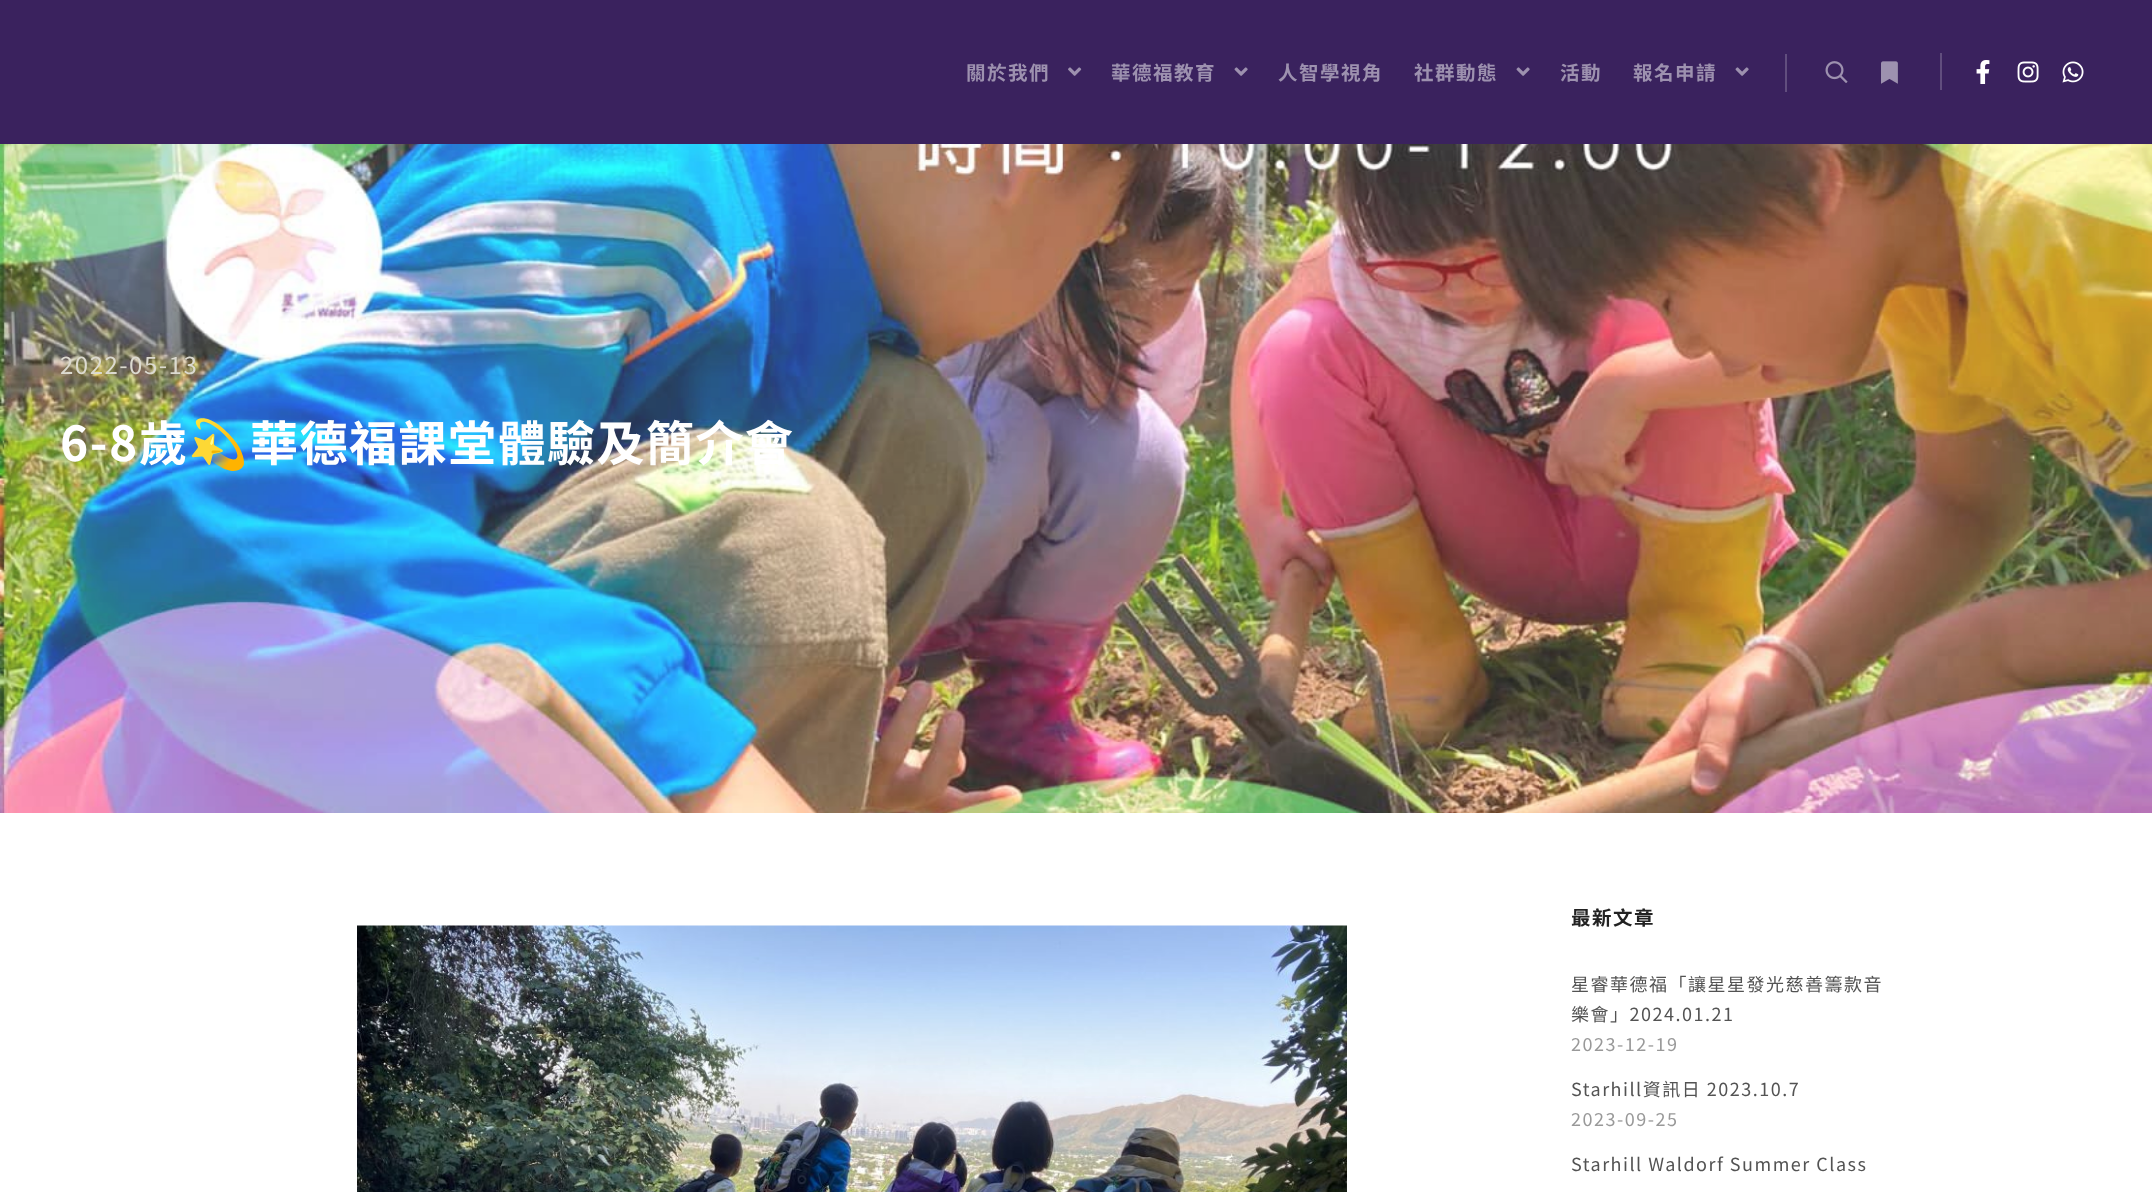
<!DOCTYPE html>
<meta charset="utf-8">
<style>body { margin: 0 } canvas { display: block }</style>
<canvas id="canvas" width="2152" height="1192"></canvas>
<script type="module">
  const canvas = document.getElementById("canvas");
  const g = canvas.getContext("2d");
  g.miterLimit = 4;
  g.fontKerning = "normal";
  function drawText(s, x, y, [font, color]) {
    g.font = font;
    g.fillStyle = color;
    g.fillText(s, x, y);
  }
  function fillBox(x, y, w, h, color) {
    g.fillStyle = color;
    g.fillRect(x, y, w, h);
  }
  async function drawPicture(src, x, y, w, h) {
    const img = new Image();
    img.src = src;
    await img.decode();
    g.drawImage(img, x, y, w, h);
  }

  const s1 = ["bold 19.5px Noto Sans HK", "#9D91AF"];
  const s2 = ["24px Noto Sans HK", "#DCDAD0"];
  const s3 = ["bold 48px Noto Sans HK", "#FFFFFF"];
  const s4 = ["bold 48px Noto Color Emoji", "#FFFFFF"];
  const s5 = ["bold 19.5px Noto Sans HK", "#222222"];
  const s6 = ["18px Noto Sans HK", "#535353"];
  const s7 = ["18px Noto Sans HK", "#999999"];

  fillBox(0, 0, 2152, 1192, "#FFFFFF");
  fillBox(0, 0, 2152, 144, "#3A225E");
  g.letterSpacing = "1.5px";
  drawText("關於我們", 966, 80, s1);
  await drawPicture("pic1.png", 1068, 67, 14, 9);
  drawText("華德福教育", 1111, 80, s1);
  await drawPicture("pic2.png", 1234, 67, 14, 9);
  drawText("人智學視角", 1278, 80, s1);
  drawText("社群動態", 1414, 80, s1);
  await drawPicture("pic2.png", 1516, 67, 14, 9);
  drawText("活動", 1560, 80, s1);
  drawText("報名申請", 1633, 80, s1);
  await drawPicture("pic2.png", 1735, 67, 14, 9);
  fillBox(1785, 54, 2, 38, "#614E7E");
  await drawPicture("pic3.png", 1825, 61, 23, 22);
  await drawPicture("pic4.png", 1881, 61, 17, 23);
  fillBox(1940, 53, 2, 37, "#614E7E");
  await drawPicture("pic5.png", 1976, 60, 14, 24);
  await drawPicture("pic6.png", 2017, 61, 22, 22);
  await drawPicture("pic7.png", 2062, 61, 22, 22);
  await drawPicture("pic8.png", 0, 144, 2152, 669);
  drawText("2022-05-13", 60, 374, s2);
  drawText("6-8歲", 60, 461, s3);
  drawText("💫", 188, 461, s4);
  drawText("華德福課堂體驗及簡介會", 250, 461, s3);
  await drawPicture("pic9.png", 357, 925, 990, 267);
  drawText("最新文章", 1571, 925, s5);
  drawText("星睿華德福「讓星星發光慈善籌款音", 1571, 991, s6);
  drawText("樂會」2024.01.21", 1571, 1021, s6);
  drawText("2023-12-19", 1571, 1051, s7);
  drawText("Starhill資訊日 2023.10.7", 1571, 1096, s6);
  drawText("2023-09-25", 1571, 1126, s7);
  drawText("Starhill Waldorf Summer Class", 1571, 1171, s6);
</script>
